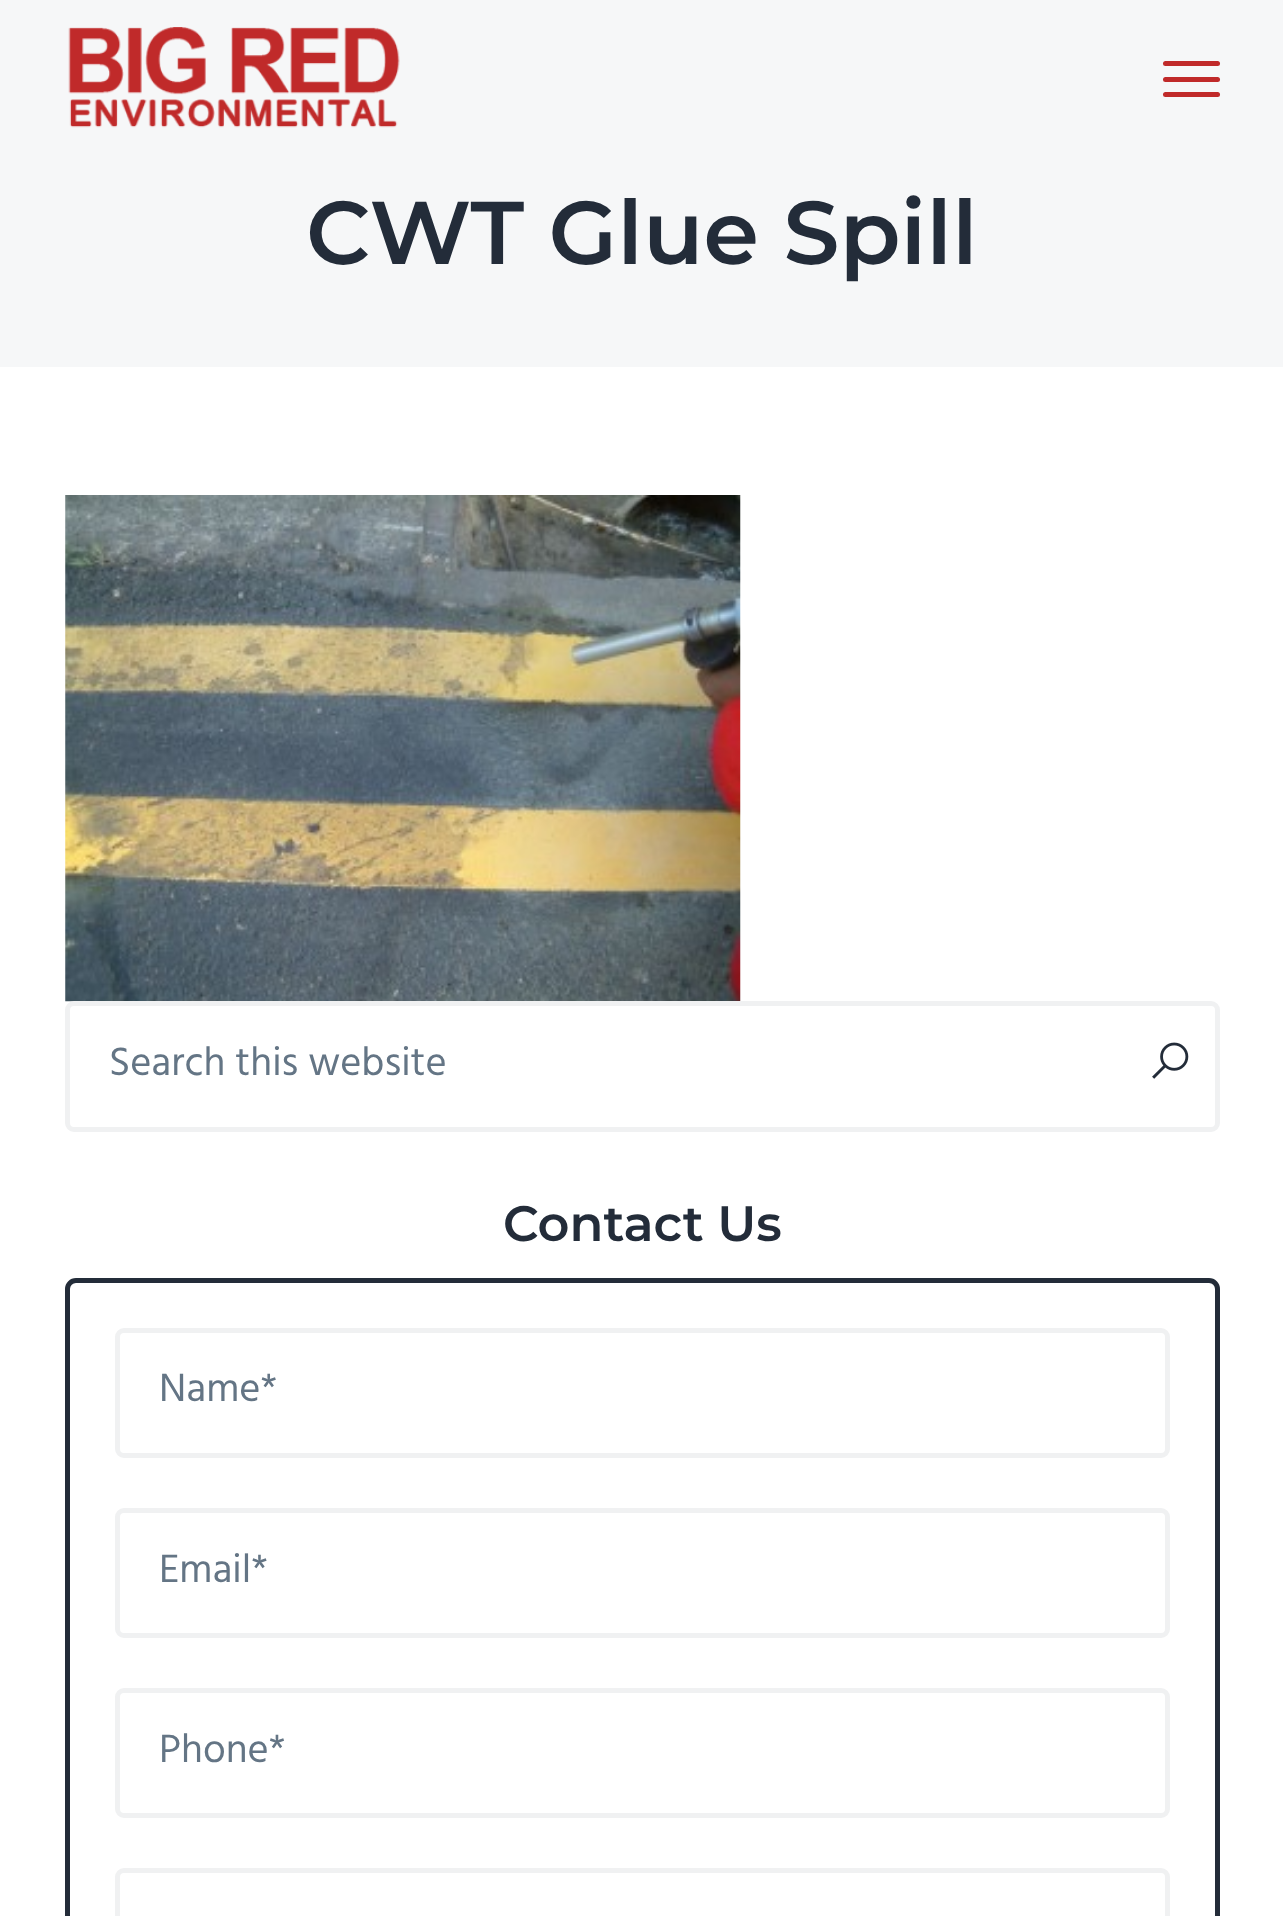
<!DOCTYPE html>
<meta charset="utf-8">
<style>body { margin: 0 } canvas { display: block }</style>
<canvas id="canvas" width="1283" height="1916"></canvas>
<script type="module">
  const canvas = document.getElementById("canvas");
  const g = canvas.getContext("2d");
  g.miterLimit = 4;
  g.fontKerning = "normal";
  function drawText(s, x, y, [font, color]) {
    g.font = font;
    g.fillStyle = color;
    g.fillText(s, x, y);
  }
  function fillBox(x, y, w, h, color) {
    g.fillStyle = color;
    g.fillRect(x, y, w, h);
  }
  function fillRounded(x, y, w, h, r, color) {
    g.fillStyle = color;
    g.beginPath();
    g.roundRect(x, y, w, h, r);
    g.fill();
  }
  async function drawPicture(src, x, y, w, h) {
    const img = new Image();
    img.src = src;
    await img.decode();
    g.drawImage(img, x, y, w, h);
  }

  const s1 = ["100 89px Montserrat", "#232C39"];
  const s2 = ["40.5px Hind", "#647585"];
  const s3 = ["100 49.5px Montserrat", "#232C39"];

  fillBox(0, 0, 1283, 1916, "#FFFFFF");
  fillBox(0, 0, 1283, 367, "#F6F7F8");
  await drawPicture("pic1.png", 68, 27, 332, 101);
  fillRounded(1163, 77, 57, 5, 2.5, "#C02A2A");
  fillRounded(1163, 61, 57, 5, 2.5, "#C02A2A");
  fillRounded(1163, 92, 57, 5, 2.5, "#C02A2A");
  drawText("CWT Glue Spill", 306, 264, s1);
  await drawPicture("pic2.png", 65, 495, 676, 507);
  g.fillStyle = "#FFFFFF";
  g.beginPath();
  g.roundRect(67.5, 1003.5, 1150, 126, 6.5);
  g.fill();
  g.strokeStyle = "#F0F1F2";
  g.lineWidth = 5;
  g.stroke();
  drawText("Search this website", 109, 1075, s2);
  await drawPicture("pic3.png", 1152, 1042, 37, 37);
  drawText("Contact Us", 503, 1241, s3);
  g.beginPath();
  g.roundRect(67.5, 1280.5, 1150, 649, 8.5);
  g.strokeStyle = "#232C39";
  g.stroke();
  g.beginPath();
  g.roundRect(117.5, 1330.5, 1050, 125, 6.5);
  g.strokeStyle = "#F0F1F2";
  g.stroke();
  drawText("Name*", 159, 1401, s2);
  g.beginPath();
  g.roundRect(117.5, 1510.5, 1050, 125, 6.5);
  g.stroke();
  drawText("Email*", 159, 1582, s2);
  g.beginPath();
  g.roundRect(117.5, 1690.5, 1050, 125, 6.5);
  g.stroke();
  drawText("Phone*", 159, 1762, s2);
  g.beginPath();
  g.roundRect(117.5, 1870.5, 1050, 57, 6.5);
  g.stroke();
</script>
